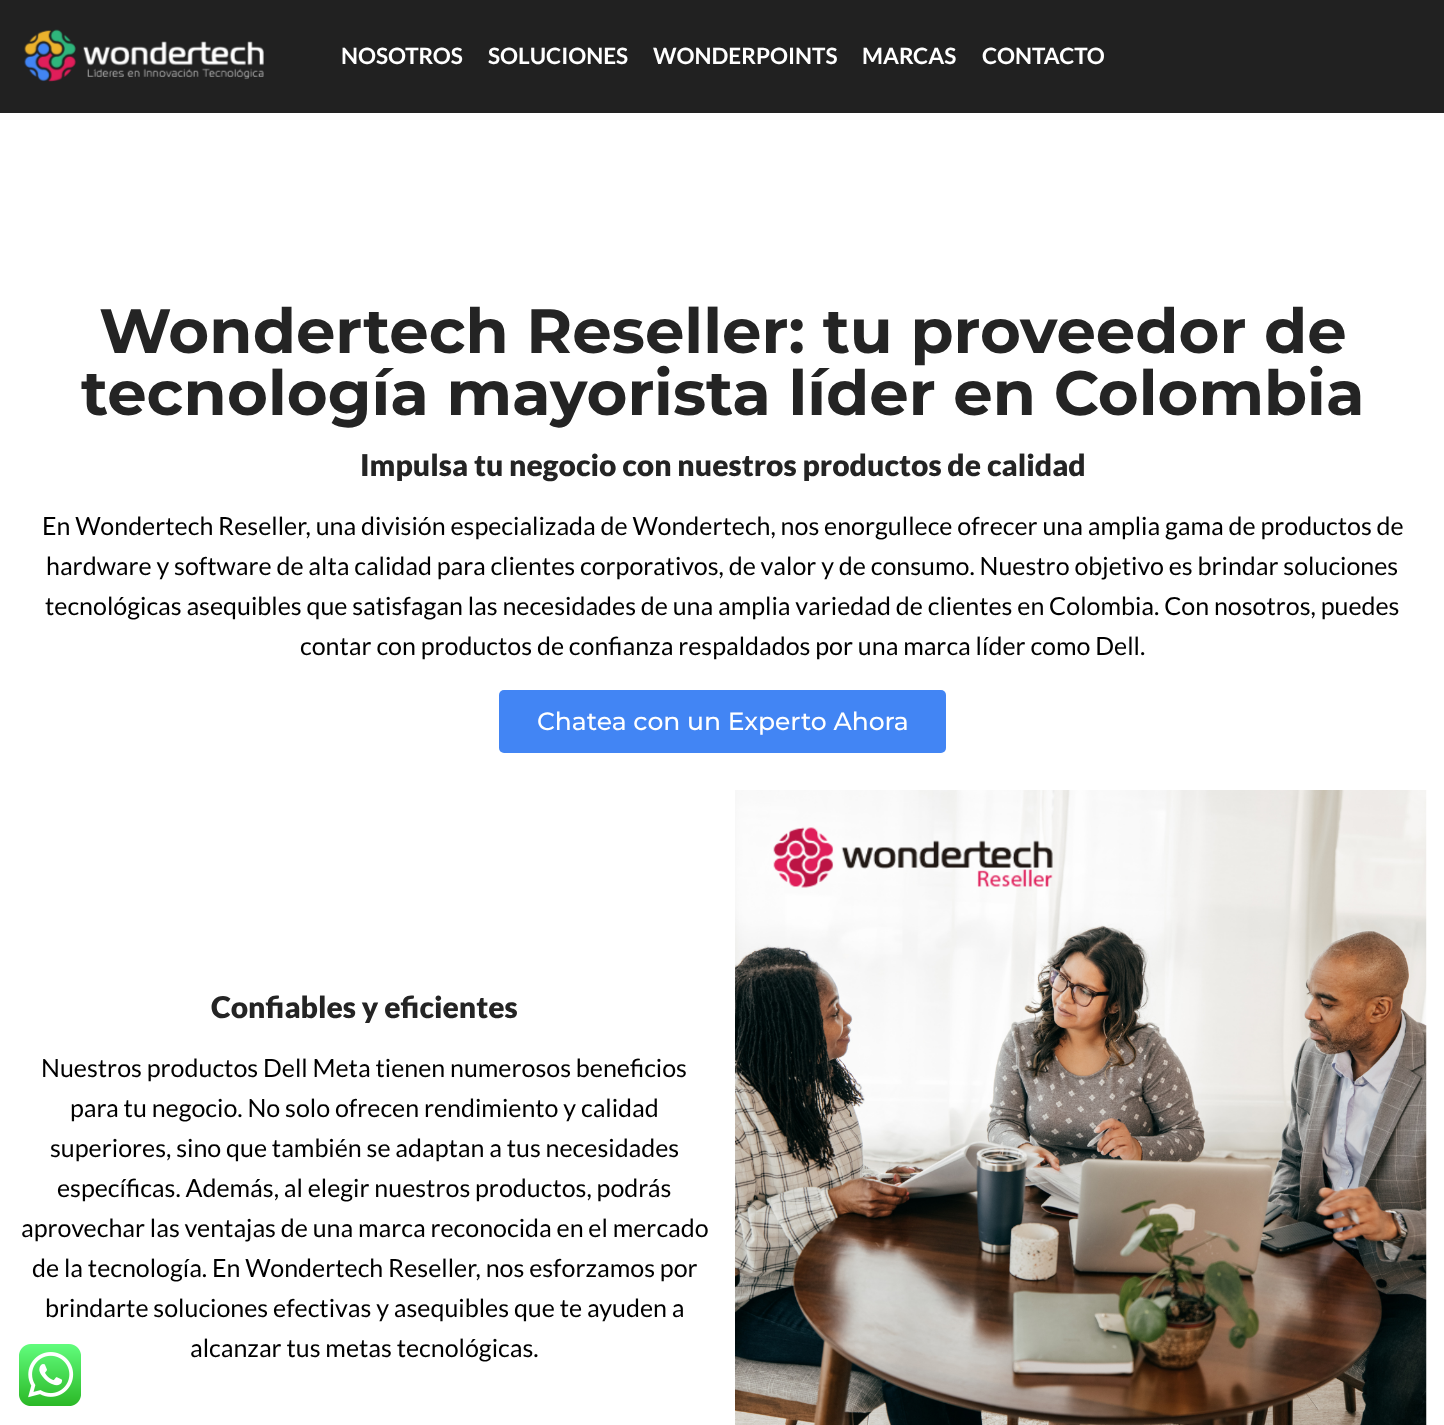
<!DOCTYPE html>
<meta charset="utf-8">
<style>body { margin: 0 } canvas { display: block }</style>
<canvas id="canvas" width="1444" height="1425"></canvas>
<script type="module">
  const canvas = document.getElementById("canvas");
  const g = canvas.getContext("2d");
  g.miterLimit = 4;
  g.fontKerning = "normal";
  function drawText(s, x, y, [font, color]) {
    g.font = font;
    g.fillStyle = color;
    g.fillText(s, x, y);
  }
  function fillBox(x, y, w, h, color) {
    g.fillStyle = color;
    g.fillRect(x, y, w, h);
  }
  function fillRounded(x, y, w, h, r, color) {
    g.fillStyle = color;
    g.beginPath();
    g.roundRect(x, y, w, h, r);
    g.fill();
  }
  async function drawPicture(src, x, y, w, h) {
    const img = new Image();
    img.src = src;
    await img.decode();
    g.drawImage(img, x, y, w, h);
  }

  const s1 = ["bold 22.5px Lato", "#FFFFFF"];
  const s2 = ["bold 62.5px Montserrat", "#242424"];
  const s3 = ["900 30px Lato", "#242424"];
  const s4 = ["25px Lato", "#000000"];
  const s5 = ["500 25px Montserrat", "#FFFFFF"];

  fillBox(0, 0, 1444, 1425, "#FFFFFF");
  fillBox(0, 0, 1444, 113, "#212121");
  await drawPicture("pic1.png", 24, 29, 240, 53);
  drawText("NOSOTROS", 341, 64, s1);
  drawText("SOLUCIONES", 488, 64, s1);
  drawText("WONDERPOINTS", 653, 64, s1);
  drawText("MARCAS", 862, 64, s1);
  drawText("CONTACTO", 982, 64, s1);
  drawText("Wondertech Reseller: tu proveedor de", 99, 353, s2);
  drawText("tecnología mayorista líder en Colombia", 81, 415, s2);
  drawText("Impulsa tu negocio con nuestros productos de calidad", 360, 476, s3);
  drawText("En Wondertech Reseller, una división especializada de Wondertech, nos enorgullece ofrecer una amplia gama de productos de", 42, 535, s4);
  drawText("hardware y software de alta calidad para clientes corporativos, de valor y de consumo. Nuestro objetivo es brindar soluciones", 46, 575, s4);
  drawText("tecnológicas asequibles que satisfagan las necesidades de una amplia variedad de clientes en Colombia. Con nosotros, puedes", 45, 615, s4);
  drawText("contar con productos de confianza respaldados por una marca líder como Dell.", 300, 655, s4);
  fillRounded(499, 690, 447, 63, 5, "#4285F4");
  drawText("Chatea con un Experto Ahora", 537, 730, s5);
  drawText("Confiables y eficientes", 211, 1018, s3);
  drawText("Nuestros productos Dell Meta tienen numerosos beneficios", 41, 1077, s4);
  drawText("para tu negocio. No solo ofrecen rendimiento y calidad", 70, 1117, s4);
  drawText("superiores, sino que también se adaptan a tus necesidades", 50, 1157, s4);
  drawText("específicas. Además, al elegir nuestros productos, podrás", 57, 1197, s4);
  drawText("aprovechar las ventajas de una marca reconocida en el mercado", 21, 1237, s4);
  drawText("de la tecnología. En Wondertech Reseller, nos esforzamos por", 32, 1277, s4);
  drawText("brindarte soluciones efectivas y asequibles que te ayuden a", 45, 1317, s4);
  drawText("alcanzar tus metas tecnológicas.", 190, 1357, s4);
  await drawPicture("pic2.png", 735, 790, 692, 635);
  await drawPicture("pic3.png", 19, 1344, 62, 62);
</script>
